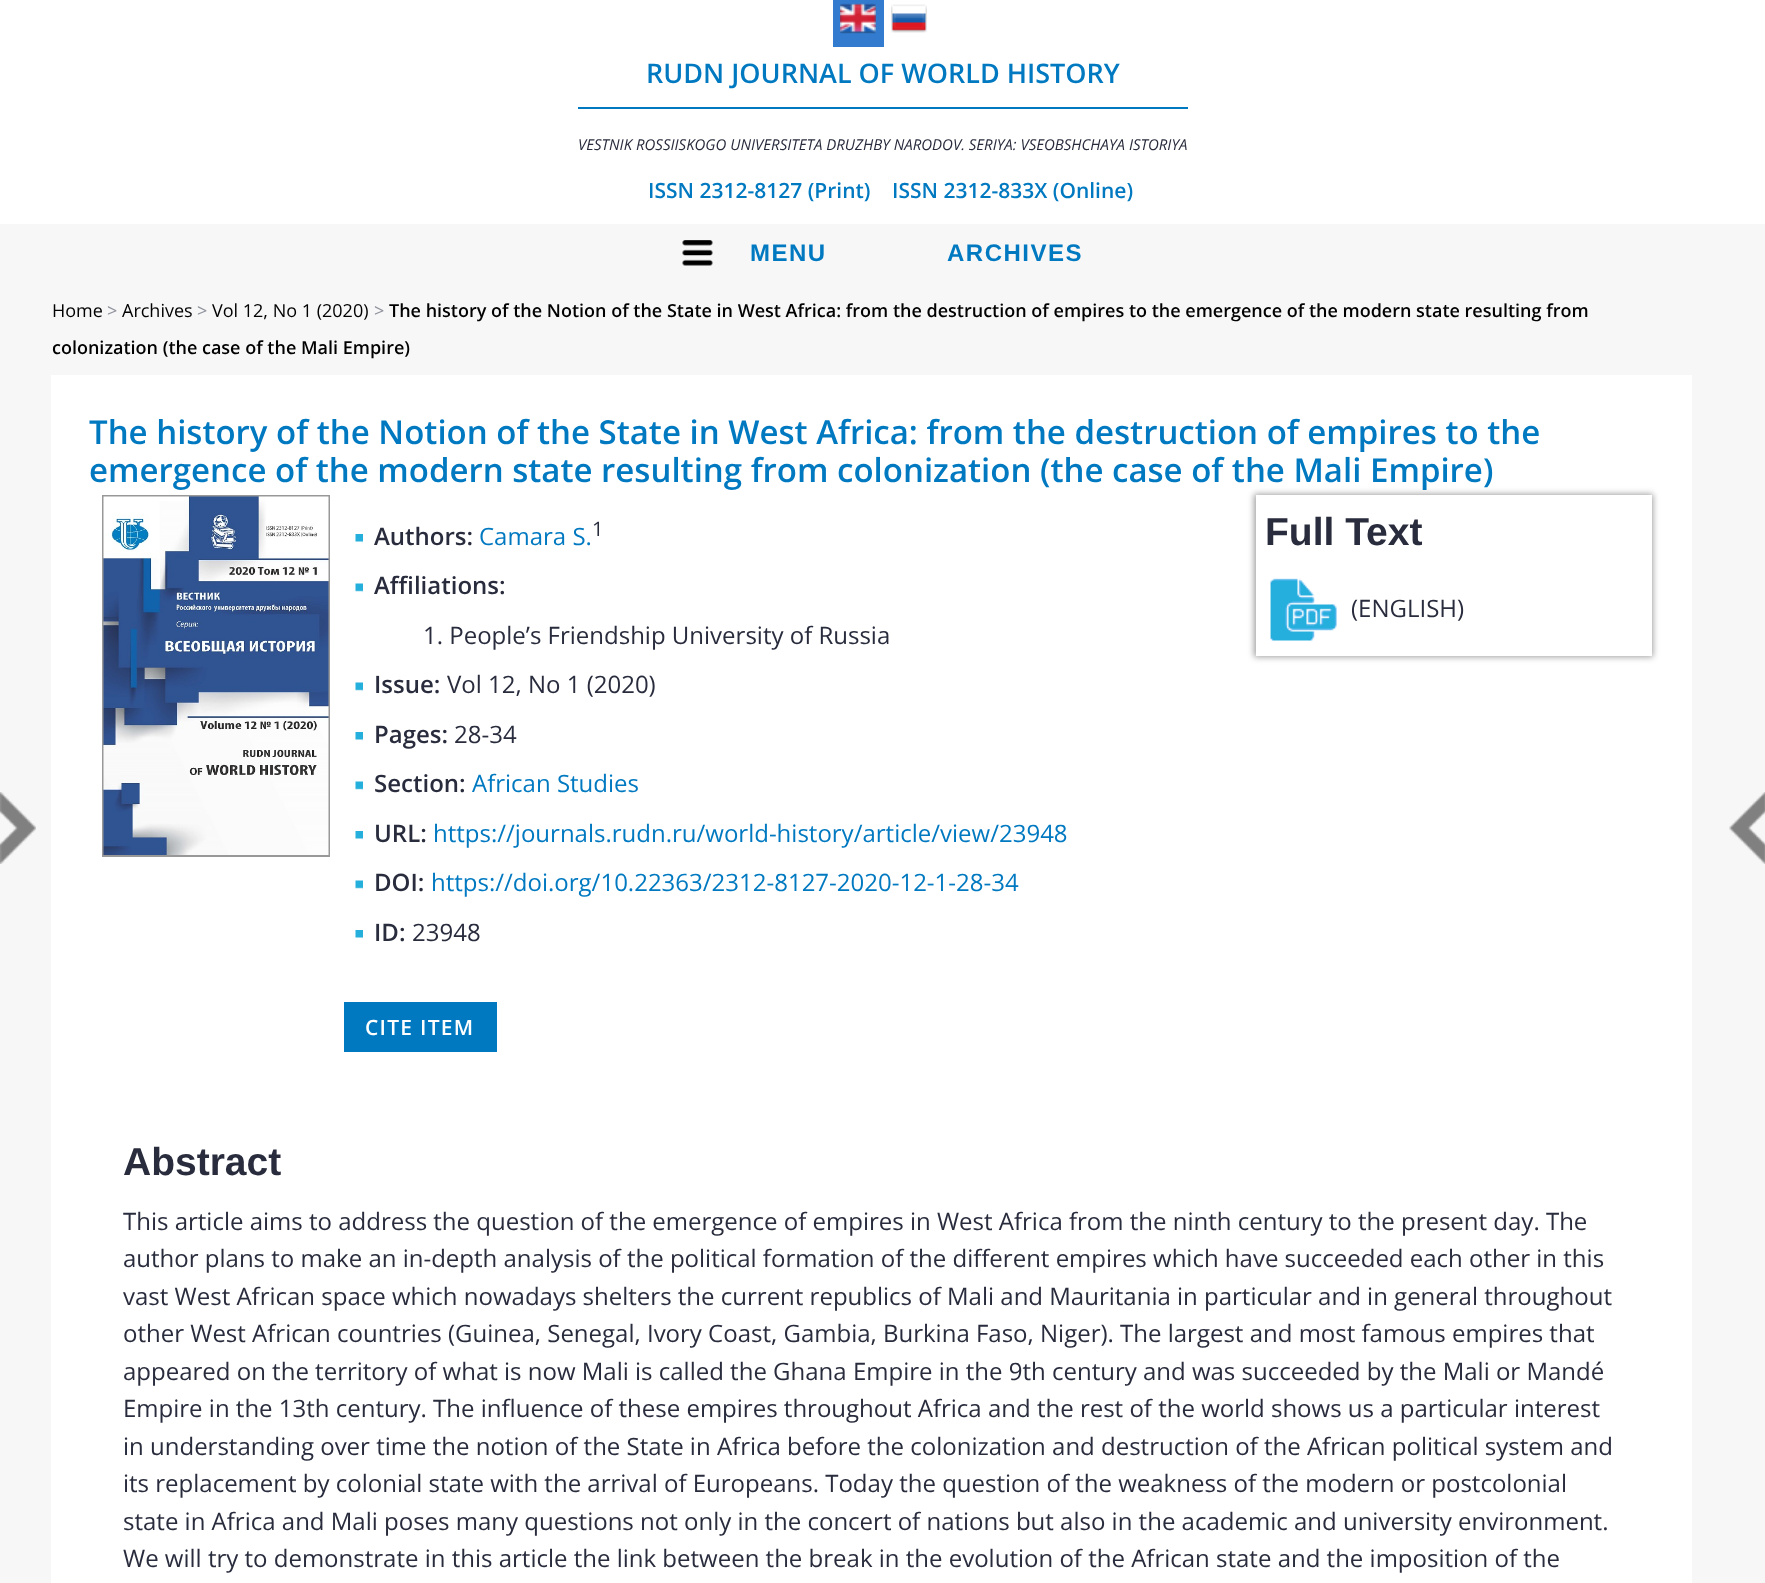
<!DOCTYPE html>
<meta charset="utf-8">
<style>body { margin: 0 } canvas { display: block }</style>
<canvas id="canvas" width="1765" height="1583"></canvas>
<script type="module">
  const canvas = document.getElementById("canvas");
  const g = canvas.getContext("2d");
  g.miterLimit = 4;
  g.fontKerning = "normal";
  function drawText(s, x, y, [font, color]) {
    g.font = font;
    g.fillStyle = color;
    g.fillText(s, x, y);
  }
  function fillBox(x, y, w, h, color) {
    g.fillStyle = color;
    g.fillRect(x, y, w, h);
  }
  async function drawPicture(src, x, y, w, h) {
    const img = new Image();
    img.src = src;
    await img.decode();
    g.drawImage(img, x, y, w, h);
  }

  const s1 = ["600 27px Open Sans", "#0079C1"];
  const s2 = ["italic 15px Open Sans", "#292C3D"];
  const s3 = ["600 21px Open Sans", "#0079C1"];
  const s4 = ["bold 24px Liberation Sans", "#0079C1"];
  const s5 = ["18px Open Sans", "#010101"];
  const s6 = ["18px Open Sans", "#90939E"];
  const s7 = ["600 18px Open Sans", "#010101"];
  const s8 = ["600 33px Open Sans", "#0079C1"];
  const s9 = ["600 24px Open Sans", "#292C3D"];
  const s10 = ["24px Open Sans", "#0079C1"];
  const s11 = ["20px Open Sans", "#292C3D"];
  const s12 = ["24px Open Sans", "#292C3D"];
  const s13 = ["600 21px Open Sans", "#FFFFFF"];
  const s14 = ["bold 39px Liberation Sans", "#292C3D"];

  fillBox(0, 0, 1765, 1583, "#F7F7F7");
  fillBox(0, 0, 1765, 224, "#FFFFFF");
  fillBox(833, 0, 51, 47, "#327BCF");
  await drawPicture("pic1.png", 840, 3, 36, 31);
  await drawPicture("pic2.png", 891, 4, 36, 29);
  drawText("RUDN JOURNAL OF WORLD HISTORY", 646, 83, s1);
  fillBox(578, 107, 610, 2, "#0079C1");
  drawText("VESTNIK ROSSIISKOGO UNIVERSITETA DRUZHBY NARODOV. SERIYA: VSEOBSHCHAYA ISTORIYA", 578, 150, s2);
  drawText("ISSN 2312-8127 (Print)", 648, 198, s3);
  drawText("ISSN 2312-833X (Online)", 892, 198, s3);
  await drawPicture("pic3.png", 682, 240, 31, 26);
  g.letterSpacing = "1.5px";
  drawText("MENU", 750, 261, s4);
  drawText("ARCHIVES", 947, 261, s4);
  g.letterSpacing = "0px";
  drawText("Home", 52, 317, s5);
  drawText(">", 107, 317, s6);
  drawText("Archives", 122, 317, s5);
  drawText(">", 197, 317, s6);
  drawText("Vol 12, No 1 (2020)", 212, 317, s5);
  drawText(">", 374, 317, s6);
  drawText("The history of the Notion of the State in West Africa: from the destruction of empires to the emergence of the modern state resulting from", 389, 317, s7);
  drawText("colonization (the case of the Mali Empire)", 52, 354, s7);
  fillBox(51, 375, 1641, 1208, "#FFFFFF");
  drawText("The history of the Notion of the State in West Africa: from the destruction of empires to the", 89, 444, s8);
  drawText("emergence of the modern state resulting from colonization (the case of the Mali Empire)", 89, 482, s8);
  g.strokeStyle = "#989898";
  g.lineWidth = 2;
  g.strokeRect(103, 496, 226, 360);
  await drawPicture("pic4.png", 103, 496, 226, 359);
  await drawPicture("pic5.png", 355, 534, 8, 9);
  drawText("Authors:", 374, 545, s9);
  drawText("Camara S.", 479, 545, s10);
  drawText("1", 592, 536, s11);
  await drawPicture("pic6.png", 355, 583, 8, 10);
  drawText("Affiliations:", 374, 594, s9);
  drawText("1. People’s Friendship University of Russia", 423, 644, s12);
  await drawPicture("pic6.png", 355, 682, 8, 10);
  drawText("Issue:", 374, 693, s9);
  drawText("Vol 12, No 1 (2020)", 447, 693, s12);
  await drawPicture("pic5.png", 355, 732, 8, 9);
  drawText("Pages:", 374, 743, s9);
  drawText("28-34", 454, 743, s12);
  await drawPicture("pic6.png", 355, 781, 8, 10);
  drawText("Section:", 374, 792, s9);
  drawText("African Studies", 472, 792, s10);
  await drawPicture("pic5.png", 355, 831, 8, 9);
  drawText("URL:", 374, 842, s9);
  drawText("https://journals.rudn.ru/world-history/article/view/23948", 433, 842, s10);
  await drawPicture("pic6.png", 355, 880, 8, 10);
  drawText("DOI:", 374, 891, s9);
  drawText("https://doi.org/10.22363/2312-8127-2020-12-1-28-34", 431, 891, s10);
  await drawPicture("pic5.png", 355, 930, 8, 9);
  drawText("ID:", 374, 941, s9);
  drawText("23948", 412, 941, s12);
  fillBox(344, 1002, 153, 50, "#0079C1");
  g.letterSpacing = "1.25px";
  drawText("CITE ITEM", 365, 1035, s13);
  g.fillStyle = "rgba(66, 66, 66, 0.5)";
  g.filter = "blur(3px)";
  g.beginPath();
  g.rect(1254, 494, 399, 163);
  g.fill();
  g.filter = "none";
  fillBox(1256, 495, 396, 161, "#FFFFFF");
  g.letterSpacing = "0px";
  drawText("Full Text", 1265, 545, s14);
  await drawPicture("pic7.png", 1270, 578, 67, 63);
  drawText("(ENGLISH)", 1351, 617, s12);
  drawText("Abstract", 123, 1175, s14);
  drawText("This article aims to address the question of the emergence of empires in West Africa from the ninth century to the present day. The", 123, 1230, s12);
  drawText("author plans to make an in-depth analysis of the political formation of the different empires which have succeeded each other in this", 123, 1267, s12);
  drawText("vast West African space which nowadays shelters the current republics of Mali and Mauritania in particular and in general throughout", 123, 1305, s12);
  drawText("other West African countries (Guinea, Senegal, Ivory Coast, Gambia, Burkina Faso, Niger). The largest and most famous empires that", 123, 1342, s12);
  drawText("appeared on the territory of what is now Mali is called the Ghana Empire in the 9th century and was succeeded by the Mali or Mandé", 123, 1380, s12);
  drawText("Empire in the 13th century. The influence of these empires throughout Africa and the rest of the world shows us a particular interest", 123, 1417, s12);
  drawText("in understanding over time the notion of the State in Africa before the colonization and destruction of the African political system and", 123, 1455, s12);
  drawText("its replacement by colonial state with the arrival of Europeans. Today the question of the weakness of the modern or postcolonial", 123, 1492, s12);
  drawText("state in Africa and Mali poses many questions not only in the concert of nations but also in the academic and university environment.", 123, 1530, s12);
  drawText("We will try to demonstrate in this article the link between the break in the evolution of the African state and the imposition of the", 123, 1567, s12);
  await drawPicture("pic8.png", 0, 792, 36, 72);
  await drawPicture("pic9.png", 1729, 792, 36, 72);
</script>
